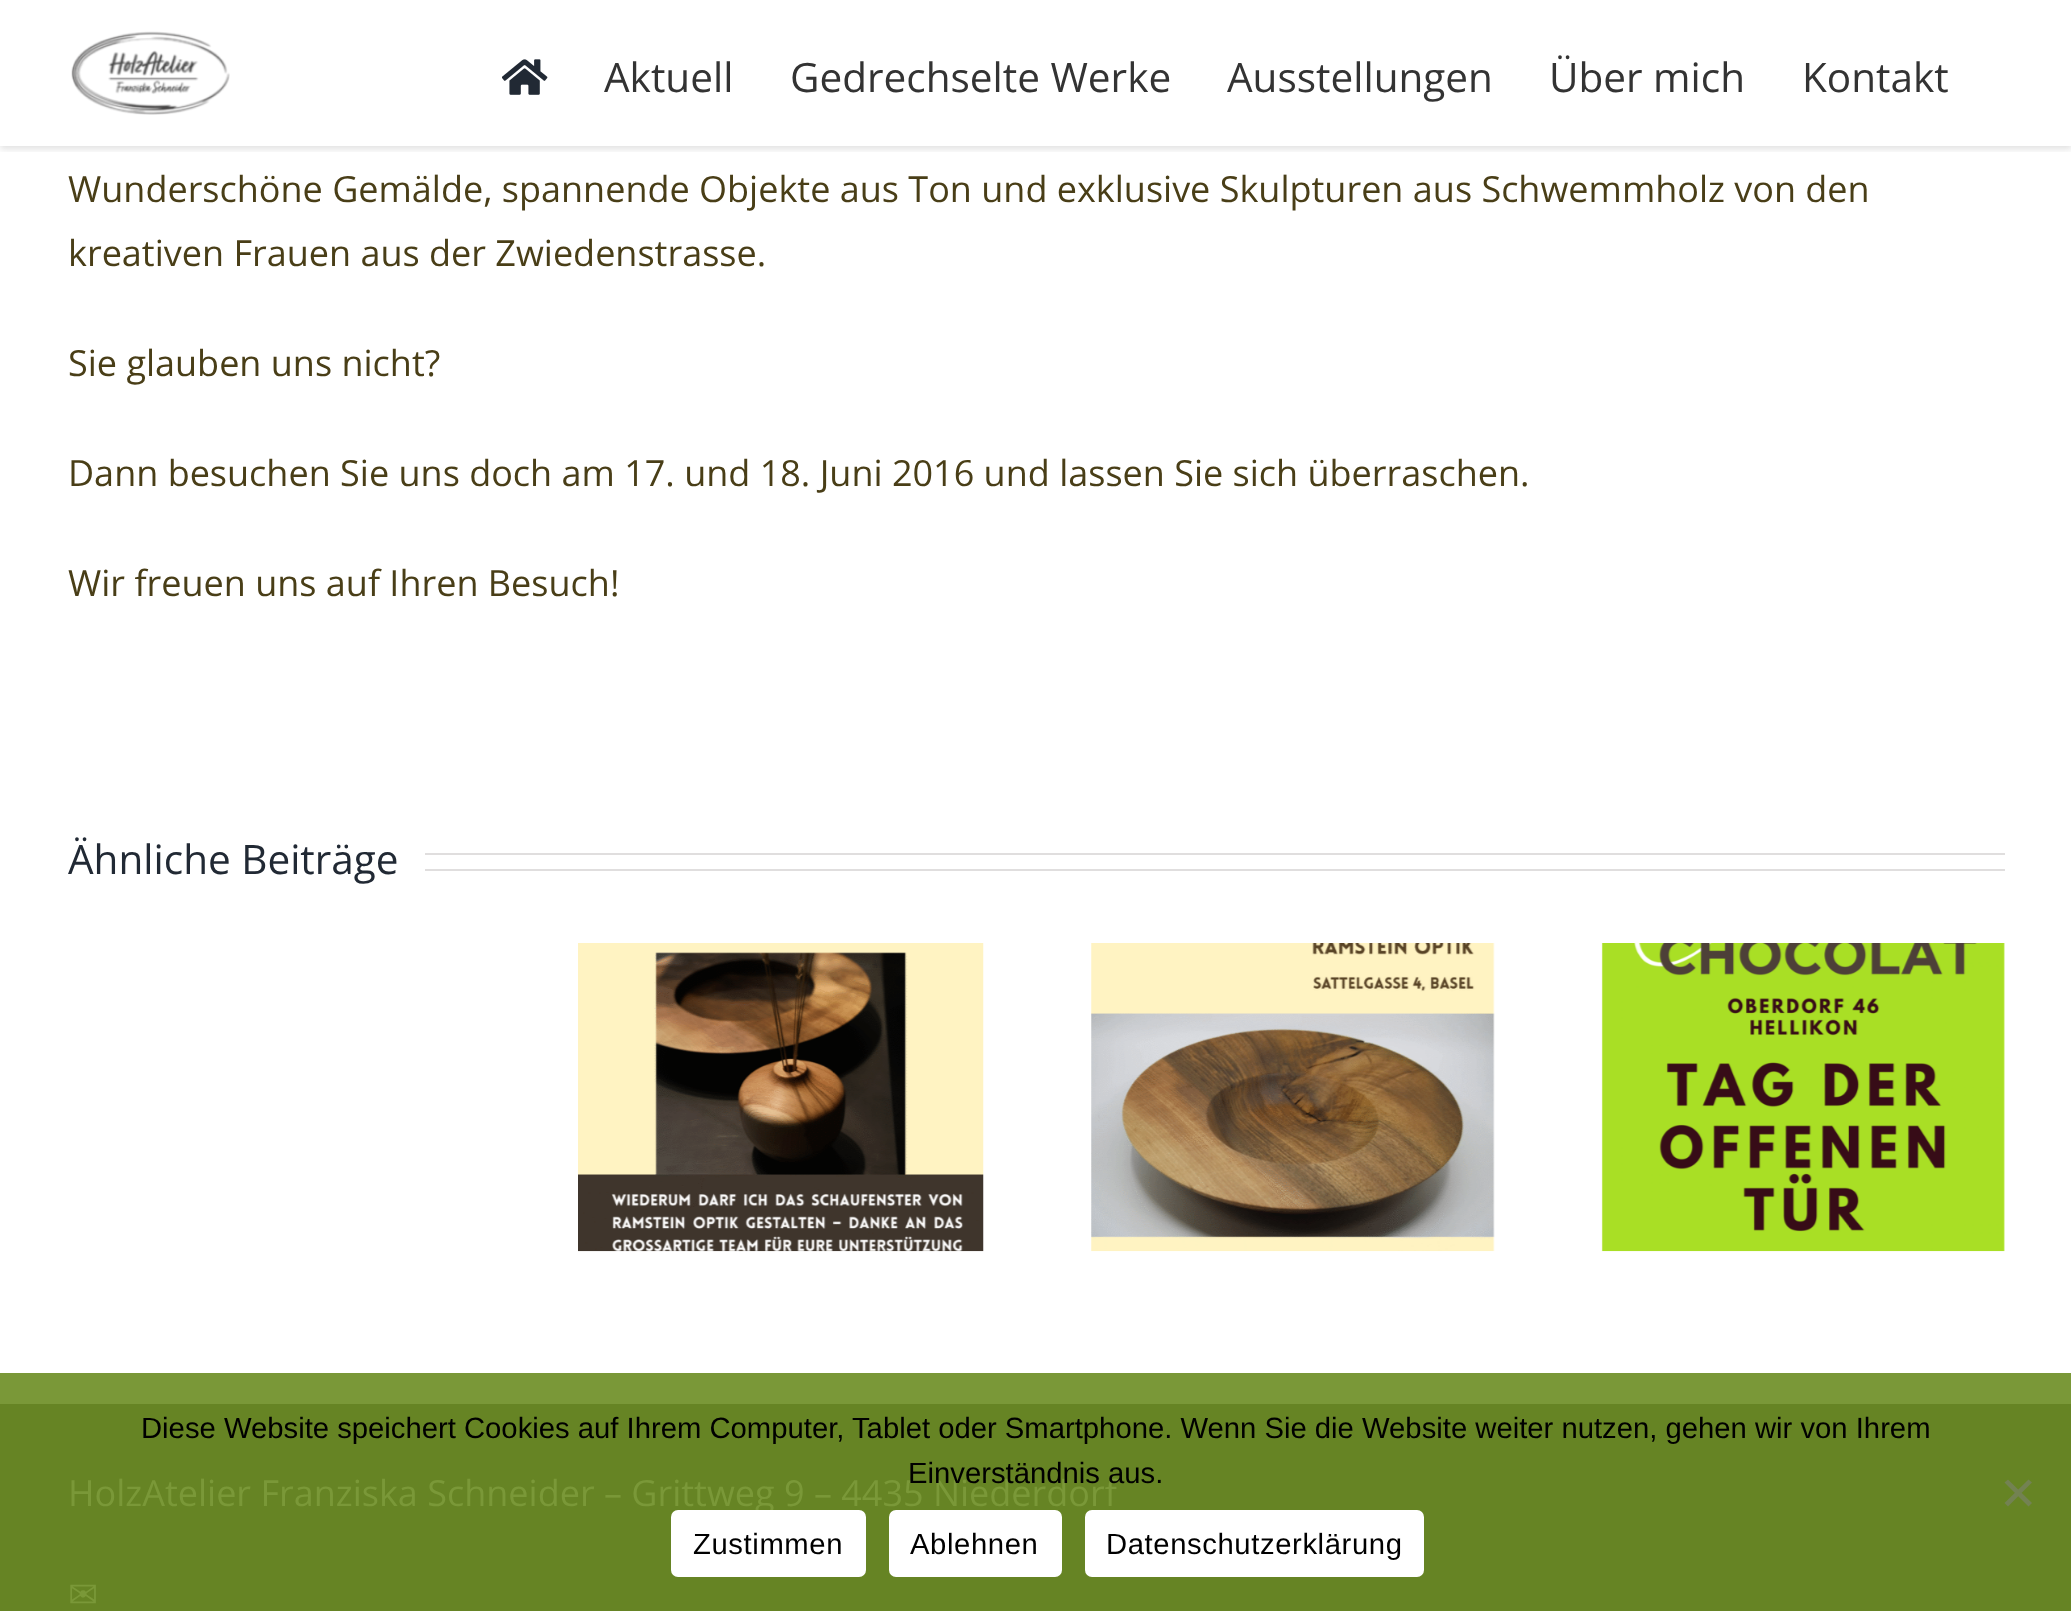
<!DOCTYPE html>
<meta charset="utf-8">
<style>body { margin: 0 } canvas { display: block }</style>
<canvas id="canvas" width="2071" height="1611"></canvas>
<script type="module">
  const canvas = document.getElementById("canvas");
  const g = canvas.getContext("2d");
  g.miterLimit = 4;
  g.fontKerning = "normal";
  function drawText(s, x, y, [font, color]) {
    g.font = font;
    g.fillStyle = color;
    g.fillText(s, x, y);
  }
  function fillBox(x, y, w, h, color) {
    g.fillStyle = color;
    g.fillRect(x, y, w, h);
  }
  function fillRounded(x, y, w, h, r, color) {
    g.fillStyle = color;
    g.beginPath();
    g.roundRect(x, y, w, h, r);
    g.fill();
  }
  async function drawPicture(src, x, y, w, h) {
    const img = new Image();
    img.src = src;
    await img.decode();
    g.drawImage(img, x, y, w, h);
  }

  const s1 = ["40.5px Open Sans", "#333333"];
  const s2 = ["36px Open Sans", "#493E17"];
  const s3 = ["40.5px Open Sans", "#212934"];
  const s4 = ["36px Open Sans", "#7A9838"];
  const s5 = ["36px DejaVu Sans", "#7A9838"];
  const s6 = ["29.25px Liberation Sans", "#000000"];

  fillBox(0, 0, 2071, 1611, "#FFFFFF");
  fillBox(0, 1373, 2071, 31, "#7A9838");
  g.save();
  g.beginPath();
  g.rect(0, 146, 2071, 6);
  g.clip();
  g.fillStyle = "rgba(0, 0, 0, 0.12)";
  g.filter = "blur(3.5px)";
  g.beginPath();
  g.rect(0, 2, 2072, 147);
  g.fill();
  g.filter = "none";
  g.restore();
  await drawPicture("pic1.png", 71, 31, 159, 84);
  await drawPicture("pic2.png", 502, 59, 46, 36);
  drawText("Aktuell", 604, 92, s1);
  drawText("Gedrechselte Werke", 790, 92, s1);
  drawText("Ausstellungen", 1227, 92, s1);
  drawText("Über mich", 1549, 92, s1);
  drawText("Kontakt", 1802, 92, s1);
  drawText("Wunderschöne Gemälde, spannende Objekte aus Ton und exklusive Skulpturen aus Schwemmholz von den", 68, 202, s2);
  drawText("kreativen Frauen aus der Zwiedenstrasse.", 68, 266, s2);
  drawText("Sie glauben uns nicht?", 68, 376, s2);
  drawText("Dann besuchen Sie uns doch am 17. und 18. Juni 2016 und lassen Sie sich überraschen.", 68, 486, s2);
  drawText("Wir freuen uns auf Ihren Besuch!", 68, 596, s2);
  drawText("Ähnliche Beiträge", 68, 874, s3);
  fillBox(425, 853, 1580, 2, "#E0DEDE");
  fillBox(425, 869, 1580, 2, "#E0DEDE");
  await drawPicture("pic3.png", 578, 943, 406, 309);
  await drawPicture("pic4.png", 1091, 943, 404, 309);
  await drawPicture("pic5.png", 1601, 943, 404, 309);
  fillBox(0, 1404, 2071, 207, "#668424");
  drawText("HolzAtelier Franziska Schneider – Grittweg 9 – 4435 Niederdorf", 68, 1506, s4);
  drawText("✉", 68, 1607, s5);
  drawText("Diese Website speichert Cookies auf Ihrem Computer, Tablet oder Smartphone. Wenn Sie die Website weiter nutzen, gehen wir von Ihrem", 141, 1438, s6);
  drawText("Einverständnis aus.", 908, 1483, s6);
  g.fillStyle = "#738252";
  g.beginPath();
  g.moveTo(2028.5, 1479.5);
  g.lineTo(2032, 1482.5);
  g.lineTo(2008, 1506.5);
  g.lineTo(2004.5, 1503);
  g.closePath();
  g.fill();
  g.beginPath();
  g.moveTo(2004.5, 1482.5);
  g.lineTo(2008, 1479.5);
  g.lineTo(2032, 1503);
  g.lineTo(2028.5, 1506.5);
  g.closePath();
  g.fill();
  fillRounded(671, 1510, 195, 67, 7, "#FFFFFF");
  g.letterSpacing = "0.6px";
  drawText("Zustimmen", 693, 1554, s6);
  fillRounded(889, 1510, 173, 67, 7, "#FFFFFF");
  drawText("Ablehnen", 910, 1554, s6);
  fillRounded(1085, 1510, 339, 67, 7, "#FFFFFF");
  drawText("Datenschutzerklärung", 1106, 1554, s6);
</script>
